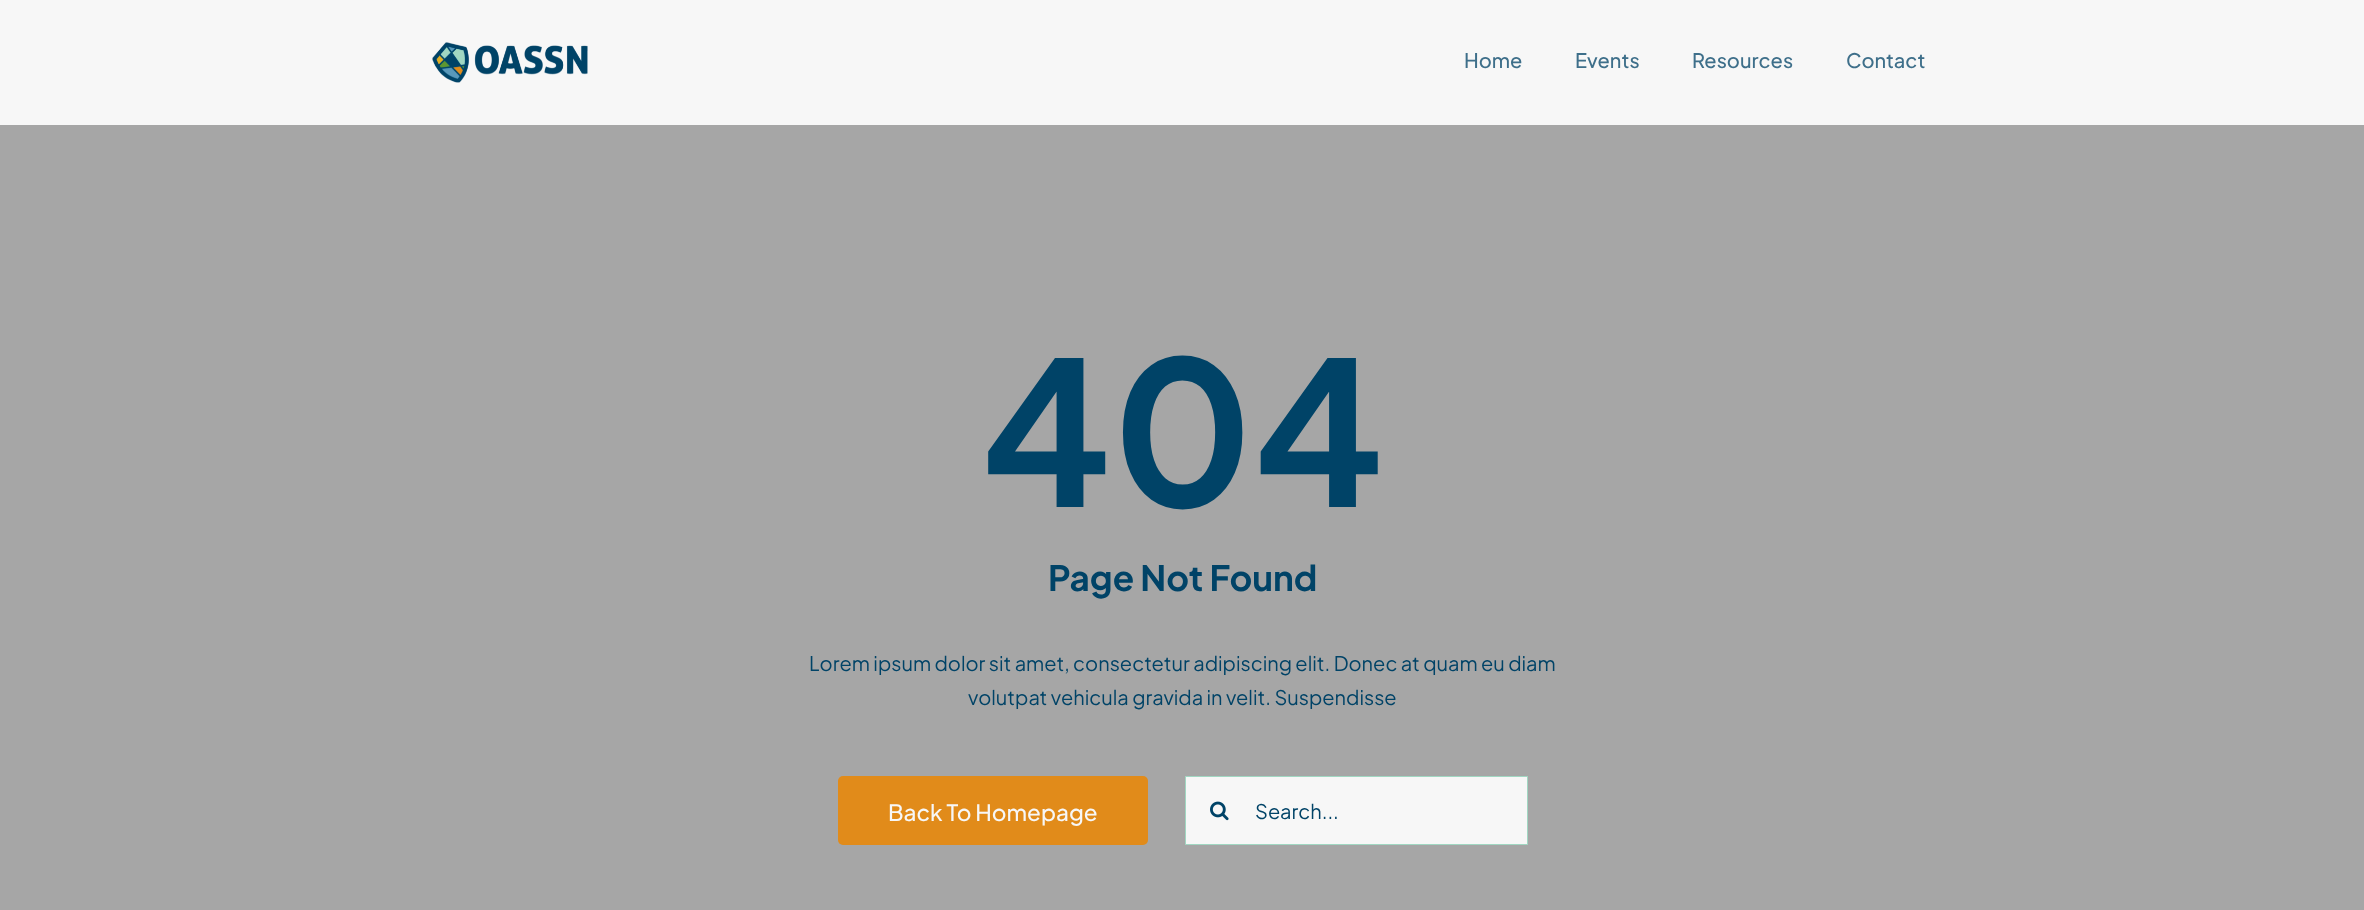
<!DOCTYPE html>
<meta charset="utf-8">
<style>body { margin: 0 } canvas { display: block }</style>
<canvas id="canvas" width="2364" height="910"></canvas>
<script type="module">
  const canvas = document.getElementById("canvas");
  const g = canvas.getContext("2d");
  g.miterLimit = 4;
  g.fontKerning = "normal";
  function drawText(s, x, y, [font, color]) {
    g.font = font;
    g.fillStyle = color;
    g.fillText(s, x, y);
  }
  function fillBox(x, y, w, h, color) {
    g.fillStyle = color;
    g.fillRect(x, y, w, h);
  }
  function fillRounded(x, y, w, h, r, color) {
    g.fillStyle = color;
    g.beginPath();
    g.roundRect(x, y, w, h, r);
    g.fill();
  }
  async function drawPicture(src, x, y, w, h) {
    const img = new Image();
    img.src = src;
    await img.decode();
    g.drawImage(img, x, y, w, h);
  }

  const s1 = ["500 20px Plus Jakarta Sans", "#3E6F8A"];
  const s2 = ["bold 200px Plus Jakarta Sans", "#004367"];
  const s3 = ["bold 35px Plus Jakarta Sans", "#004367"];
  const s4 = ["20px Plus Jakarta Sans", "#004367"];
  const s5 = ["500 22.5px Plus Jakarta Sans", "#F7F7F7"];

  fillBox(0, 0, 2364, 910, "#F7F7F7");
  await drawPicture("pic1.png", 432, 42, 156, 41);
  drawText("Home", 1464, 68, s1);
  drawText("Events", 1575, 68, s1);
  drawText("Resources", 1692, 68, s1);
  drawText("Contact", 1846, 68, s1);
  fillBox(0, 125, 2364, 785, "#A6A6A6");
  drawText("404", 981, 507, s2);
  drawText("Page Not Found", 1048, 591, s3);
  drawText("Lorem ipsum dolor sit amet, consectetur adipiscing elit. Donec at quam eu diam", 809, 671, s4);
  drawText("volutpat vehicula gravida in velit. Suspendisse", 968, 705, s4);
  fillRounded(838, 776, 310, 69, 5, "#E18B1A");
  drawText("Back To Homepage", 888, 821, s5);
  g.beginPath();
  g.rect(1185.5, 776.5, 342, 68);
  g.fill();
  g.strokeStyle = "#A1D7C2";
  g.stroke();
  await drawPicture("pic2.png", 1210, 801, 19, 20);
  drawText("Search...", 1255, 819, s4);
</script>
